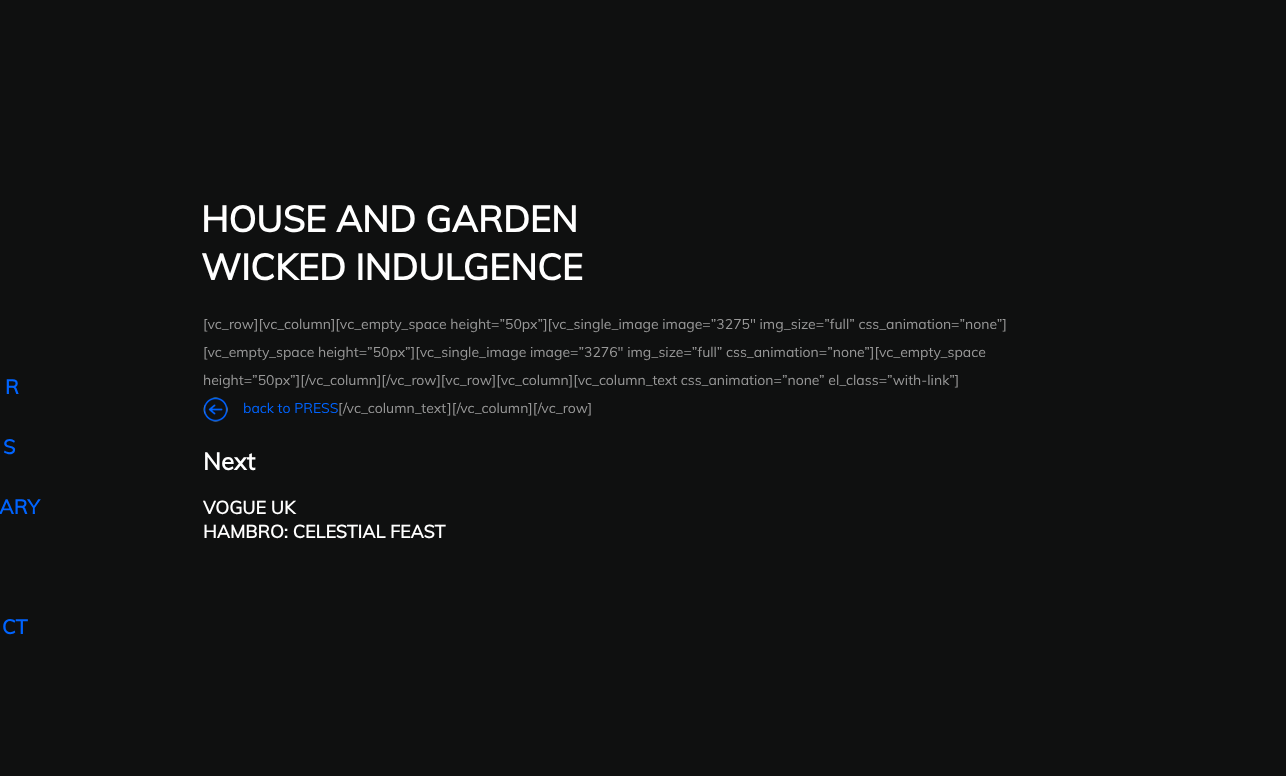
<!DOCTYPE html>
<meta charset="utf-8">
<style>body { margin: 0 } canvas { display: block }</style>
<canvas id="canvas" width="1286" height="776"></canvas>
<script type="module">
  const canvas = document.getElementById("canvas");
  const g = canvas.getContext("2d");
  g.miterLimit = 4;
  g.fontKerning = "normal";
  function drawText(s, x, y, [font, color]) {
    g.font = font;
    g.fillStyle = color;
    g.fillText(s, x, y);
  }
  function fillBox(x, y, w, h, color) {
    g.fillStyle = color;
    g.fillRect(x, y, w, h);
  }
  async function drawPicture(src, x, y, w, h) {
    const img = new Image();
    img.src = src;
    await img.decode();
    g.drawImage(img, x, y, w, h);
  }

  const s1 = ["bold 20px Muli", "#0064FF"];
  const s2 = ["bold 36px Muli", "#FFFFFF"];
  const s3 = ["14px Muli", "#999999"];
  const s4 = ["14px Muli", "#0064FF"];
  const s5 = ["bold 24px Muli", "#FFFFFF"];
  const s6 = ["bold 18px Muli", "#FFFFFF"];

  fillBox(0, 0, 1286, 776, "#0F1010");
  drawText("R", 5, 394, s1);
  drawText("S", 3, 454, s1);
  drawText("ARY", -1, 514, s1);
  drawText("CT", 2, 634, s1);
  drawText("HOUSE AND GARDEN", 201, 232, s2);
  drawText("WICKED INDULGENCE", 201, 280, s2);
  drawText("[vc_row][vc_column][vc_empty_space height=”50px”][vc_single_image image=”3275″ img_size=”full” css_animation=”none”]", 203, 329, s3);
  drawText("[vc_empty_space height=”50px”][vc_single_image image=”3276″ img_size=”full” css_animation=”none”][vc_empty_space", 203, 357, s3);
  drawText("height=”50px”][/vc_column][/vc_row][vc_row][vc_column][vc_column_text css_animation=”none” el_class=”with-link”]", 203, 385, s3);
  await drawPicture("pic1.png", 203, 397, 25, 25);
  drawText("back to PRESS", 243, 413, s4);
  drawText("[/vc_column_text][/vc_column][/vc_row]", 338, 413, s3);
  drawText("Next", 203, 470, s5);
  drawText("VOGUE UK", 203, 514, s6);
  drawText("HAMBRO: CELESTIAL FEAST", 203, 538, s6);
</script>
